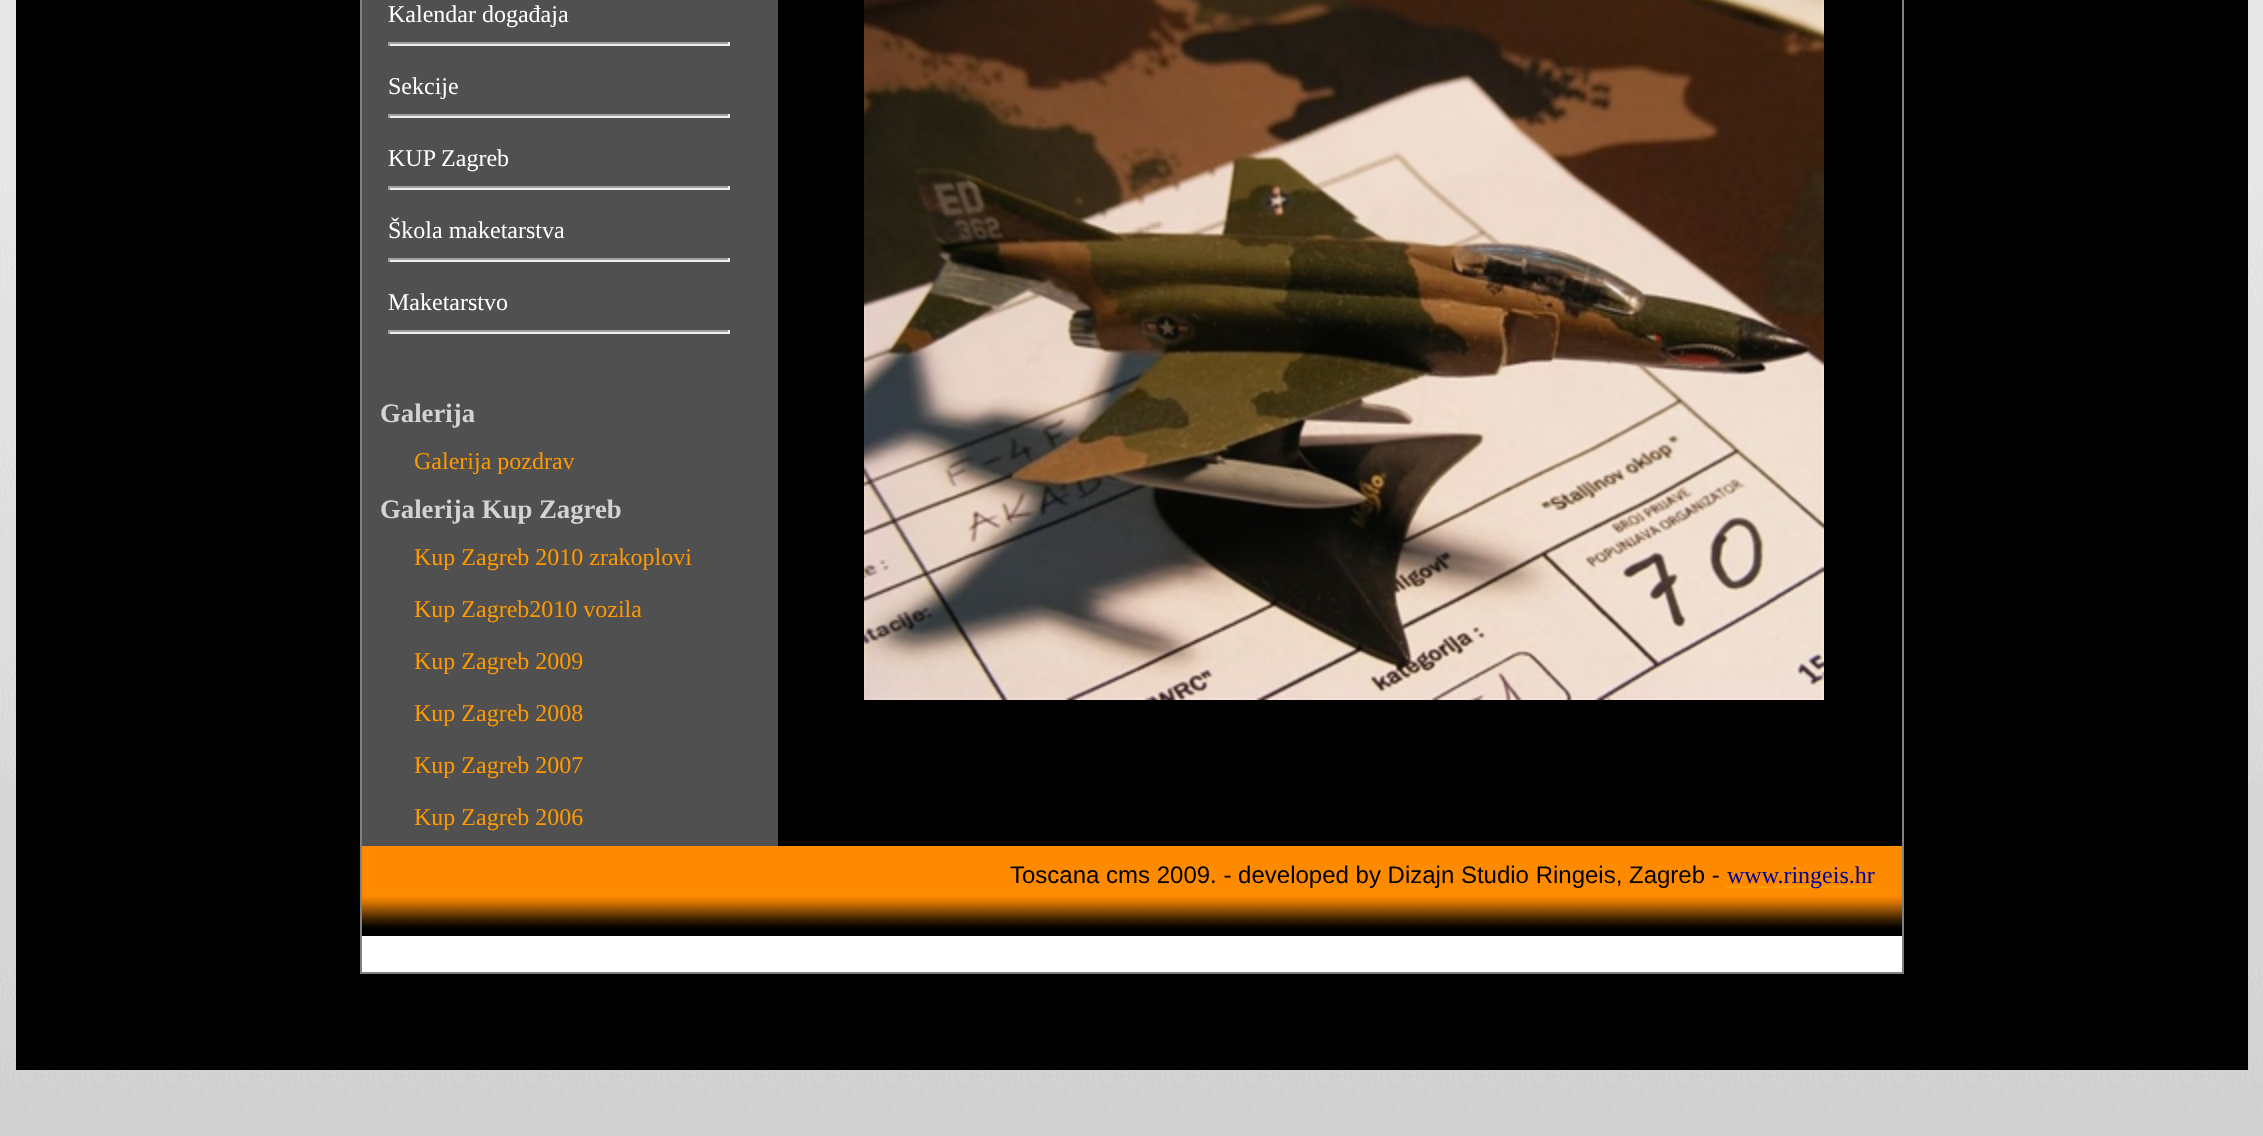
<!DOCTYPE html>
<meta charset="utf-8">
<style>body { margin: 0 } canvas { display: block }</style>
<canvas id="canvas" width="2263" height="1136"></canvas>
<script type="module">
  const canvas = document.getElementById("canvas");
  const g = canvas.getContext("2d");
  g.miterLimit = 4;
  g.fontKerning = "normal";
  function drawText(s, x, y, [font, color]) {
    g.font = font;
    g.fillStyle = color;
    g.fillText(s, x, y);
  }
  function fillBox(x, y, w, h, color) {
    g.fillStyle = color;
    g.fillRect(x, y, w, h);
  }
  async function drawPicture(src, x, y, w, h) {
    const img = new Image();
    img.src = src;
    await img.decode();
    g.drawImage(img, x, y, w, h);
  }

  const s1 = ["24px Liberation Serif", "#FFFFFF"];
  const s2 = ["bold 26.75px Liberation Serif", "#D3D3D3"];
  const s3 = ["24px Liberation Serif", "#FF9900"];
  const s4 = ["24px Liberation Sans", "#000000"];
  const s5 = ["24px Liberation Serif", "#000099"];

  fillBox(0, 0, 2263, 1136, "#FFFFFF");
  await drawPicture("pic1.png", 0, 0, 2263, 1136);
  fillBox(16, 0, 2232, 1070, "#000000");
  g.strokeStyle = "#808080";
  g.lineWidth = 2;
  g.strokeRect(361, -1, 1542, 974);
  fillBox(362, 936, 1540, 36, "#FFFFFF");
  fillBox(362, 0, 416, 846, "#505050");
  drawText("Kalendar događaja", 388, 22, s1);
  fillBox(388, 42, 342, 2, "#9F9F9F");
  fillBox(728, 42, 2, 4, "#EEEEEE");
  fillBox(388, 44, 342, 2, "#EEEEEE");
  fillBox(388, 42, 2, 4, "#9F9F9F");
  drawText("Sekcije", 388, 94, s1);
  fillBox(388, 114, 342, 2, "#9F9F9F");
  fillBox(728, 114, 2, 4, "#EEEEEE");
  fillBox(388, 116, 342, 2, "#EEEEEE");
  fillBox(388, 114, 2, 4, "#9F9F9F");
  drawText("KUP Zagreb", 388, 166, s1);
  fillBox(388, 186, 342, 2, "#9F9F9F");
  fillBox(728, 186, 2, 4, "#EEEEEE");
  fillBox(388, 188, 342, 2, "#EEEEEE");
  fillBox(388, 186, 2, 4, "#9F9F9F");
  drawText("Škola maketarstva", 388, 238, s1);
  fillBox(388, 258, 342, 2, "#9F9F9F");
  fillBox(728, 258, 2, 4, "#EEEEEE");
  fillBox(388, 260, 342, 2, "#EEEEEE");
  fillBox(388, 258, 2, 4, "#9F9F9F");
  drawText("Maketarstvo", 388, 310, s1);
  fillBox(388, 330, 342, 2, "#9F9F9F");
  fillBox(728, 330, 2, 4, "#EEEEEE");
  fillBox(388, 332, 342, 2, "#EEEEEE");
  fillBox(388, 330, 2, 4, "#9F9F9F");
  drawText("Galerija", 380, 422, s2);
  drawText("Galerija pozdrav", 414, 469, s3);
  drawText("Galerija Kup Zagreb", 380, 518, s2);
  drawText("Kup Zagreb 2010 zrakoplovi", 414, 565, s3);
  drawText("Kup Zagreb2010 vozila", 414, 617, s3);
  drawText("Kup Zagreb 2009", 414, 669, s3);
  drawText("Kup Zagreb 2008", 414, 721, s3);
  drawText("Kup Zagreb 2007", 414, 773, s3);
  drawText("Kup Zagreb 2006", 414, 825, s3);
  await drawPicture("pic2.png", 864, 0, 960, 700);
  await drawPicture("pic3.png", 362, 846, 1540, 90);
  drawText("Toscana cms 2009. - developed by Dizajn Studio Ringeis, Zagreb -", 1010, 883, s4);
  fillBox(1726, 886, 148, 2, "#FF9900");
  drawText("www.ringeis.hr", 1727, 883, s5);
</script>
